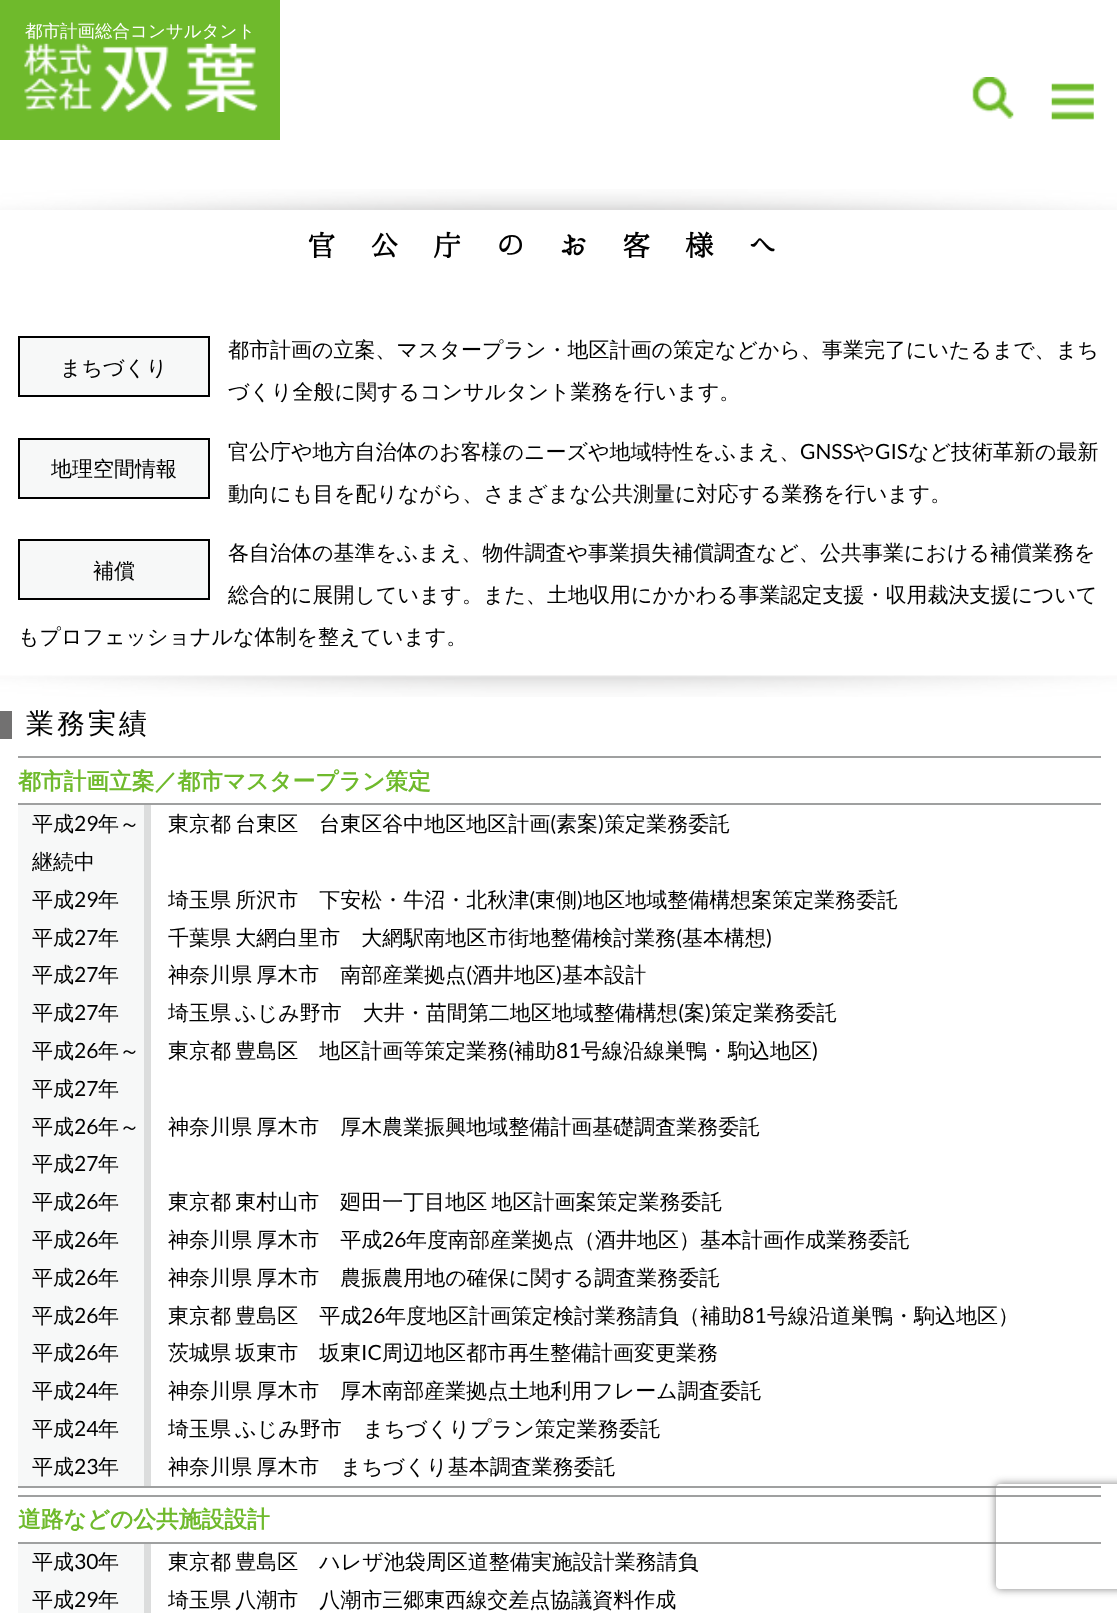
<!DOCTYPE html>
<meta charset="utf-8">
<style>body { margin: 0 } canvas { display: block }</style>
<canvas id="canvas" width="1117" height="1613"></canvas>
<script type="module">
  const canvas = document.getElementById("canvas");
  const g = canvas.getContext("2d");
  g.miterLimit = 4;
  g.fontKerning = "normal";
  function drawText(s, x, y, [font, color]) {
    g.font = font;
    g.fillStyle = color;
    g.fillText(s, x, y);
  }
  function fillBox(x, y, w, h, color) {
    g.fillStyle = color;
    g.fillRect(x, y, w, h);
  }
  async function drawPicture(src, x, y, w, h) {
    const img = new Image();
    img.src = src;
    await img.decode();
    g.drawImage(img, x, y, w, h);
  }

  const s1 = ["500 17.5px WenQuanYi Zen Hei", "#FFFFFF"];
  const s2 = ["bold 31.5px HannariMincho", "#000000"];
  const s3 = ["500 21px WenQuanYi Zen Hei", "#000000"];
  const s4 = ["21px Lato", "#000000"];
  const s5 = ["500 28px WenQuanYi Zen Hei", "#000000"];
  const s6 = ["bold 22.75px WenQuanYi Zen Hei", "#6FBA2C"];

  fillBox(0, 0, 1117, 1613, "#FFFFFF");
  fillBox(0, 0, 280, 140, "#6FBA2C");
  drawText("都市計画総合コンサルタント", 25, 37, s1);
  await drawPicture("pic1.png", 24, 43, 234, 69);
  await drawPicture("pic2.png", 972, 77, 42, 42);
  await drawPicture("pic3.png", 1051, 83, 43, 37);
  await drawPicture("pic4.png", 0, 189, 1117, 21);
  g.letterSpacing = "31.5px";
  drawText("官公庁のお客様へ", 307, 256, s2);
  g.fillStyle = "#F7F8F8";
  g.beginPath();
  g.rect(19, 337, 190, 59);
  g.fill();
  g.strokeStyle = "#000000";
  g.lineWidth = 2;
  g.stroke();
  g.letterSpacing = "0px";
  drawText("まちづくり", 60, 375, s3);
  drawText("都市計画の立案、マスタープラン・地区計画の策定などから、事業完了にいたるまで、まち", 228, 357, s3);
  drawText("づくり全般に関するコンサルタント業務を行います。", 228, 399, s3);
  g.fillStyle = "#F7F8F8";
  g.beginPath();
  g.rect(19, 439, 190, 59);
  g.fill();
  g.stroke();
  drawText("地理空間情報", 51, 476, s3);
  drawText("官公庁や地方自治体のお客様のニーズや地域特性をふまえ、", 228, 459, s3);
  drawText("GNSS", 800, 459, s4);
  drawText("や", 853, 459, s3);
  drawText("GIS", 875, 459, s4);
  drawText("など技術革新の最新", 908, 459, s3);
  drawText("動向にも目を配りながら、さまざまな公共測量に対応する業務を行います。", 228, 501, s3);
  drawText("各自治体の基準をふまえ、物件調査や事業損失補償調査など、公共事業における補償業務を", 228, 560, s3);
  drawText("総合的に展開しています。また、土地収用にかかわる事業認定支援・収用裁決支援について", 228, 602, s3);
  drawText("もプロフェッショナルな体制を整えています。", 18, 644, s3);
  g.fillStyle = "#F7F8F8";
  g.beginPath();
  g.rect(19, 540, 190, 59);
  g.fill();
  g.stroke();
  drawText("補償", 93, 578, s3);
  await drawPicture("pic5.png", 0, 675, 1117, 22);
  fillBox(0, 711, 12, 28, "#727171");
  g.letterSpacing = "3px";
  drawText("業務実績", 26, 733, s5);
  fillBox(18, 756, 1083, 2, "#9FA0A0");
  g.letterSpacing = "0px";
  drawText("都市計画立案／都市マスタープラン策定", 18, 789, s6);
  fillBox(18, 803, 1083, 2, "#9FA0A0");
  fillBox(18, 1486, 1083, 2, "#9FA0A0");
  fillBox(18, 805, 126, 681, "#F7F8F8");
  drawText("平成", 32, 831, s3);
  drawText("29", 74, 831, s4);
  drawText("年～", 98, 831, s3);
  drawText("継続中", 32, 869, s3);
  fillBox(144, 805, 7, 681, "#DCDDDD");
  g.wordSpacing = "-2px";
  drawText("東京都 台東区　台東区谷中地区地区計画", 168, 831, s3);
  g.wordSpacing = "0px";
  drawText("(", 550, 831, s4);
  drawText("素案 策定業務委託", 556, 831, s3);
  drawText(")", 598, 831, s4);
  drawText("平成", 32, 907, s3);
  drawText("29", 74, 907, s4);
  drawText("年", 98, 907, s3);
  g.wordSpacing = "-2px";
  drawText("埼玉県 所沢市　下安松・牛沼・北秋津", 168, 907, s3);
  g.wordSpacing = "0px";
  drawText("(", 529, 907, s4);
  drawText("東側 地区地域整備構想案策定業務委託", 535, 907, s3);
  drawText(")", 577, 907, s4);
  drawText("平成", 32, 945, s3);
  drawText("27", 74, 945, s4);
  drawText("年", 98, 945, s3);
  g.wordSpacing = "-2px";
  drawText("千葉県 大網白里市　大網駅南地区市街地整備検討業務", 168, 945, s3);
  g.wordSpacing = "0px";
  drawText("(", 676, 945, s4);
  drawText("基本構想", 682, 945, s3);
  drawText(")", 766, 945, s4);
  drawText("平成", 32, 982, s3);
  drawText("27", 74, 982, s4);
  drawText("年", 98, 982, s3);
  g.wordSpacing = "-2px";
  drawText("神奈川県 厚木市　南部産業拠点", 168, 982, s3);
  g.wordSpacing = "0px";
  drawText("(", 466, 982, s4);
  drawText("酒井地区 基本設計", 472, 982, s3);
  drawText(")", 556, 982, s4);
  drawText("平成", 32, 1020, s3);
  drawText("27", 74, 1020, s4);
  drawText("年", 98, 1020, s3);
  g.wordSpacing = "-2px";
  drawText("埼玉県 ふじみ野市　大井・苗間第二地区地域整備構想", 168, 1020, s3);
  g.wordSpacing = "0px";
  drawText("(", 678, 1020, s4);
  drawText("案 策定業務委託", 684, 1020, s3);
  drawText(")", 705, 1020, s4);
  drawText("平成", 32, 1058, s3);
  drawText("26", 74, 1058, s4);
  drawText("年～", 98, 1058, s3);
  drawText("平成", 32, 1096, s3);
  drawText("27", 74, 1096, s4);
  drawText("年", 98, 1096, s3);
  g.wordSpacing = "-2px";
  drawText("東京都 豊島区　地区計画等策定業務", 168, 1058, s3);
  g.wordSpacing = "0px";
  drawText("(", 508, 1058, s4);
  drawText("補助", 514, 1058, s3);
  drawText("81", 556, 1058, s4);
  drawText("号線沿線巣鴨・駒込地区", 581, 1058, s3);
  drawText(")", 812, 1058, s4);
  drawText("平成", 32, 1134, s3);
  drawText("26", 74, 1134, s4);
  drawText("年～", 98, 1134, s3);
  drawText("平成", 32, 1171, s3);
  drawText("27", 74, 1171, s4);
  drawText("年", 98, 1171, s3);
  g.wordSpacing = "-2px";
  drawText("神奈川県 厚木市　厚木農業振興地域整備計画基礎調査業務委託", 168, 1134, s3);
  g.wordSpacing = "0px";
  drawText("平成", 32, 1209, s3);
  drawText("26", 74, 1209, s4);
  drawText("年", 98, 1209, s3);
  g.wordSpacing = "-2px";
  drawText("東京都 東村山市　廻田一丁目地区 地区計画案策定業務委託", 168, 1209, s3);
  g.wordSpacing = "0px";
  drawText("平成", 32, 1247, s3);
  drawText("26", 74, 1247, s4);
  drawText("年", 98, 1247, s3);
  g.wordSpacing = "-2px";
  drawText("神奈川県 厚木市　平成", 168, 1247, s3);
  g.wordSpacing = "0px";
  drawText("26", 382, 1247, s4);
  drawText("年度南部産業拠点（酒井地区）基本計画作成業務委託", 406, 1247, s3);
  drawText("平成", 32, 1285, s3);
  drawText("26", 74, 1285, s4);
  drawText("年", 98, 1285, s3);
  g.wordSpacing = "-2px";
  drawText("神奈川県 厚木市　農振農用地の確保に関する調査業務委託", 168, 1285, s3);
  g.wordSpacing = "0px";
  drawText("平成", 32, 1323, s3);
  drawText("26", 74, 1323, s4);
  drawText("年", 98, 1323, s3);
  g.wordSpacing = "-2px";
  drawText("東京都 豊島区　平成", 168, 1323, s3);
  g.wordSpacing = "0px";
  drawText("26", 361, 1323, s4);
  drawText("年度地区計画策定検討業務請負（補助", 385, 1323, s3);
  drawText("81", 742, 1323, s4);
  drawText("号線沿道巣鴨・駒込地区）", 767, 1323, s3);
  drawText("平成", 32, 1360, s3);
  drawText("26", 74, 1360, s4);
  drawText("年", 98, 1360, s3);
  g.wordSpacing = "-2px";
  drawText("茨城県 坂東市　坂東", 168, 1360, s3);
  g.wordSpacing = "0px";
  drawText("IC", 361, 1360, s4);
  drawText("周辺地区都市再生整備計画変更業務", 382, 1360, s3);
  drawText("平成", 32, 1398, s3);
  drawText("24", 74, 1398, s4);
  drawText("年", 98, 1398, s3);
  g.wordSpacing = "-2px";
  drawText("神奈川県 厚木市　厚木南部産業拠点土地利用フレーム調査委託", 168, 1398, s3);
  g.wordSpacing = "0px";
  drawText("平成", 32, 1436, s3);
  drawText("24", 74, 1436, s4);
  drawText("年", 98, 1436, s3);
  g.wordSpacing = "-2px";
  drawText("埼玉県 ふじみ野市　まちづくりプラン策定業務委託", 168, 1436, s3);
  g.wordSpacing = "0px";
  drawText("平成", 32, 1474, s3);
  drawText("23", 74, 1474, s4);
  drawText("年", 98, 1474, s3);
  g.wordSpacing = "-2px";
  drawText("神奈川県 厚木市　まちづくり基本調査業務委託", 168, 1474, s3);
  fillBox(18, 1495, 1083, 2, "#9FA0A0");
  g.wordSpacing = "0px";
  drawText("道路などの公共施設設計", 18, 1527, s6);
  fillBox(18, 1542, 1083, 2, "#9FA0A0");
  fillBox(18, 1544, 126, 69, "#F7F8F8");
  drawText("平成", 32, 1569, s3);
  drawText("30", 74, 1569, s4);
  drawText("年", 98, 1569, s3);
  fillBox(144, 1544, 7, 69, "#DCDDDD");
  g.wordSpacing = "-2px";
  drawText("東京都 豊島区　ハレザ池袋周区道整備実施設計業務請負", 168, 1569, s3);
  g.wordSpacing = "0px";
  drawText("平成", 32, 1607, s3);
  drawText("29", 74, 1607, s4);
  drawText("年", 98, 1607, s3);
  g.wordSpacing = "-2px";
  drawText("埼玉県 八潮市　八潮市三郷東西線交差点協議資料作成", 168, 1607, s3);
  g.save();
  g.beginPath();
  g.moveTo(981, 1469);
  g.lineTo(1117, 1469);
  g.lineTo(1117, 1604);
  g.lineTo(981, 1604);
  g.closePath();
  g.moveTo(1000, 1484);
  g.lineTo(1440, 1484);
  g.bezierCurveTo(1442, 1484, 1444, 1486, 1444, 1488);
  g.lineTo(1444, 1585);
  g.bezierCurveTo(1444, 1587, 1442, 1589, 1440, 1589);
  g.lineTo(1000, 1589);
  g.bezierCurveTo(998, 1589, 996, 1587, 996, 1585);
  g.lineTo(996, 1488);
  g.bezierCurveTo(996, 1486, 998, 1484, 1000, 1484);
  g.closePath();
  g.clip("evenodd");
  g.fillStyle = "#808080";
  g.filter = "blur(4.5px)";
  g.beginPath();
  g.roundRect(996, 1484, 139, 105, 4);
  g.fill();
  g.filter = "none";
  g.restore();
</script>
